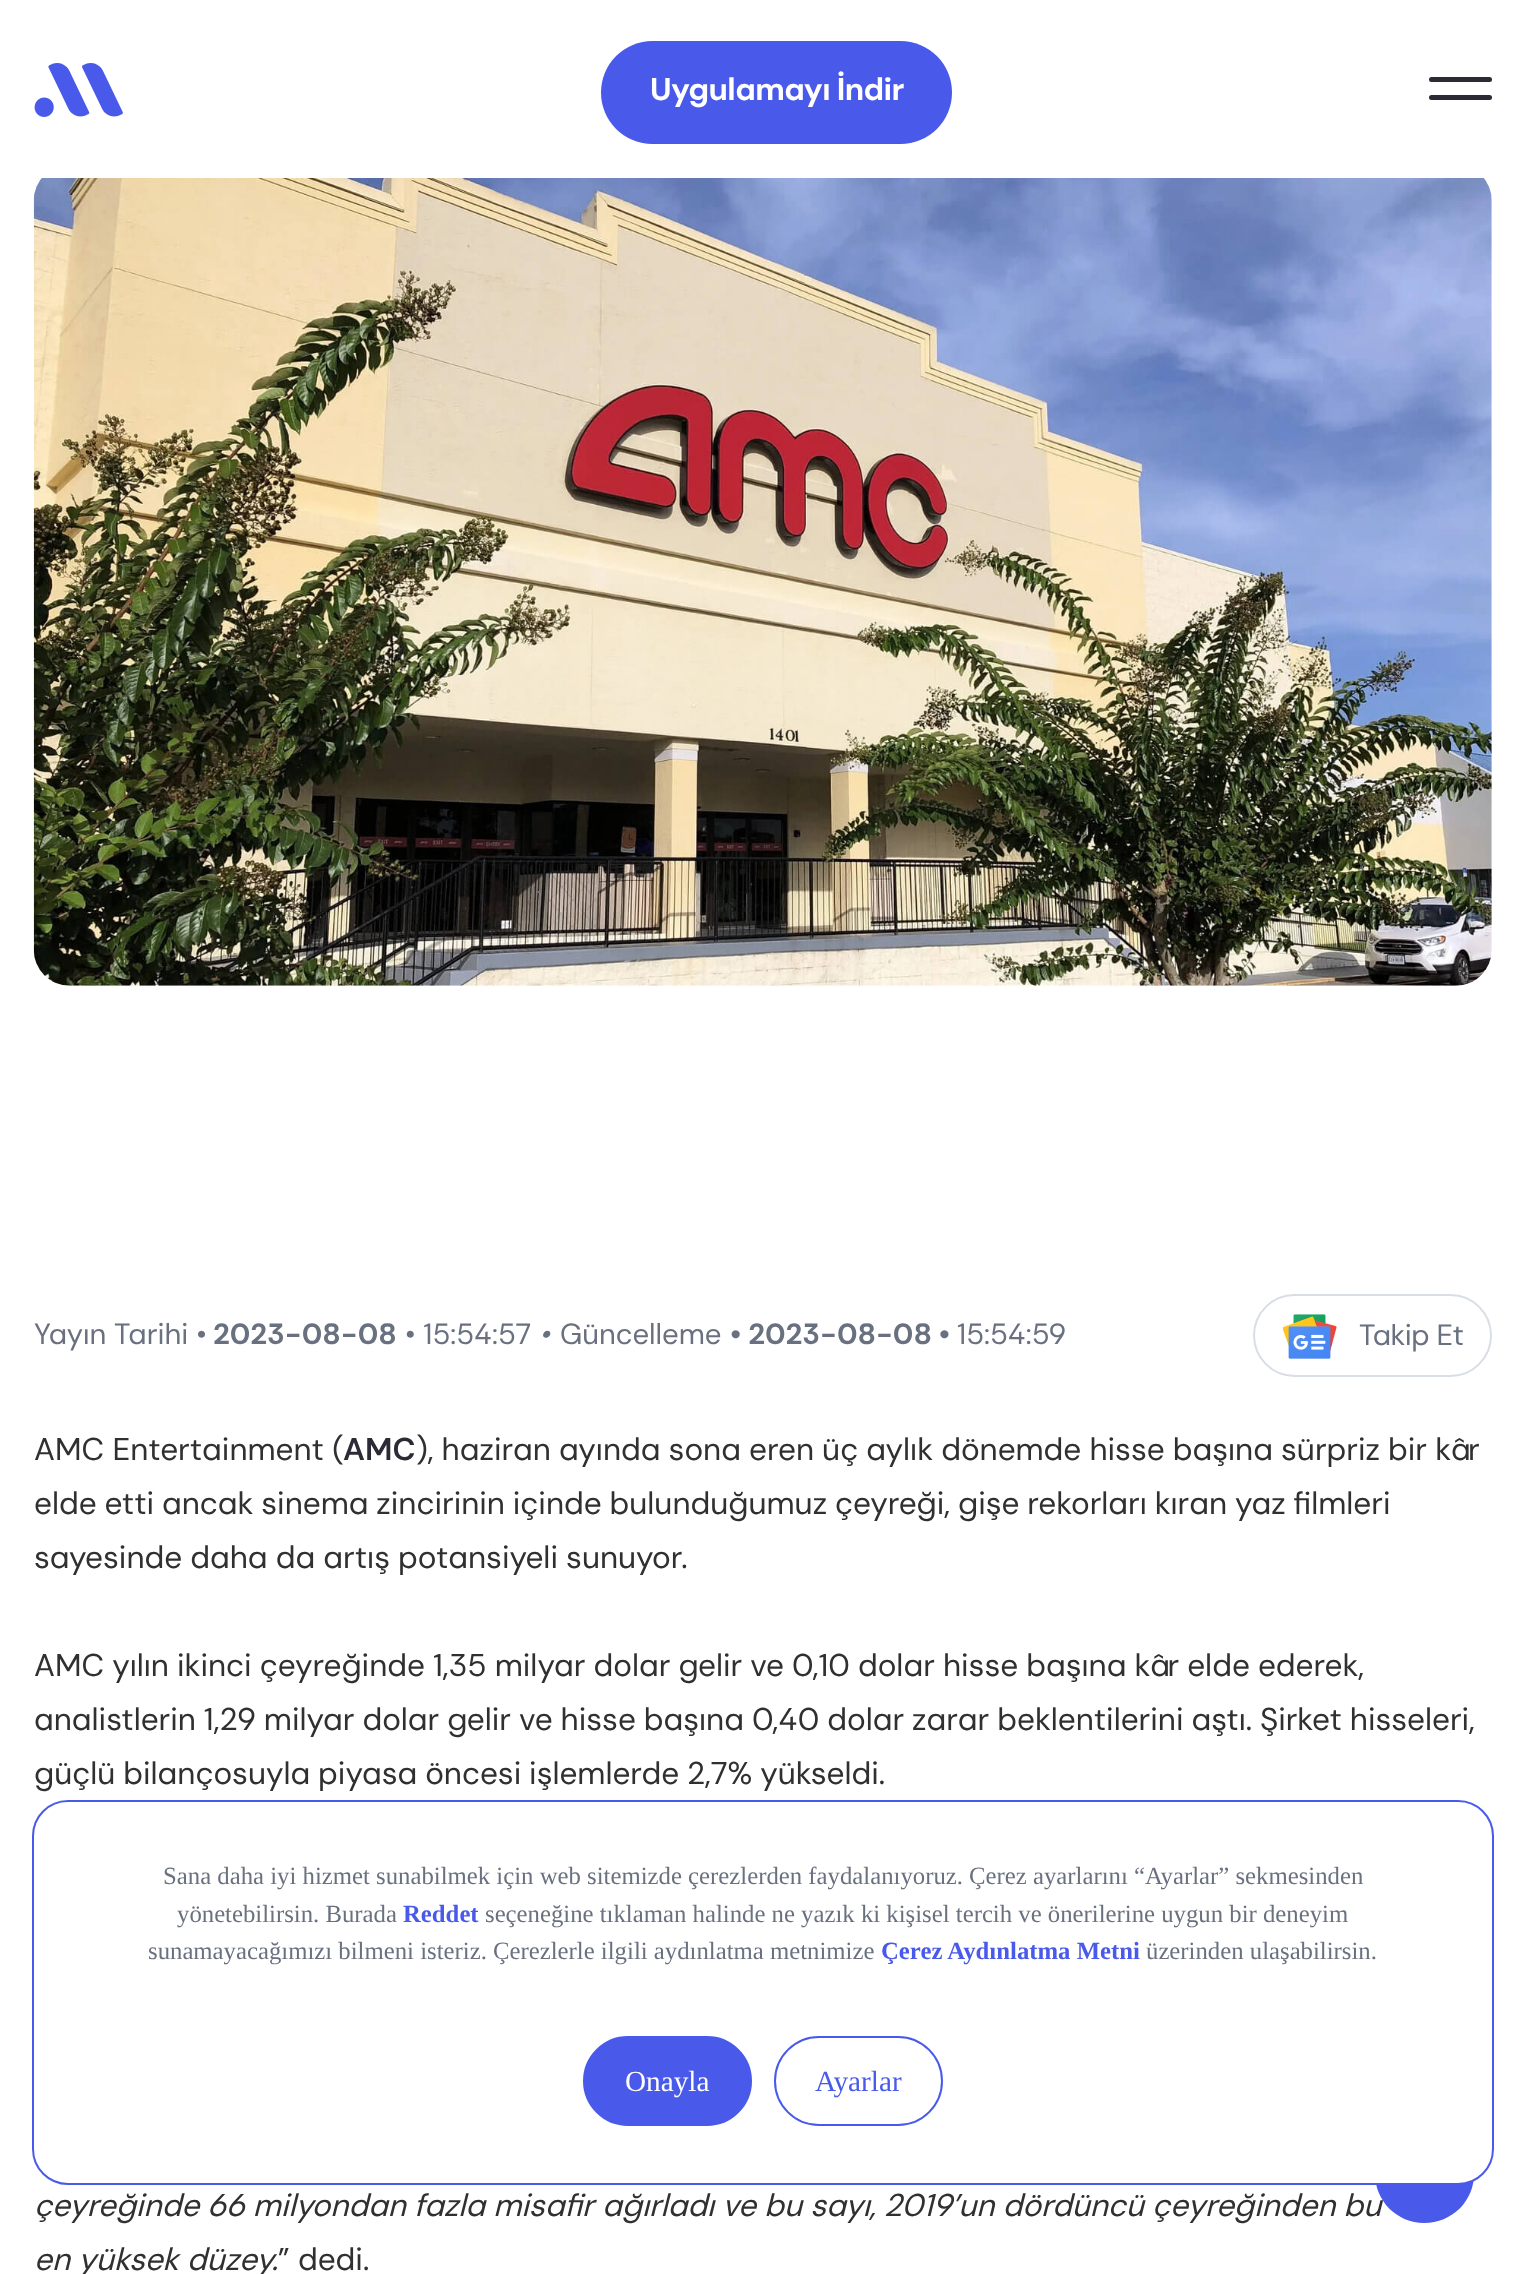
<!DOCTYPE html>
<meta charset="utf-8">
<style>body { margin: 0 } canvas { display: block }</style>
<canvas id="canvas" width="1525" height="2274"></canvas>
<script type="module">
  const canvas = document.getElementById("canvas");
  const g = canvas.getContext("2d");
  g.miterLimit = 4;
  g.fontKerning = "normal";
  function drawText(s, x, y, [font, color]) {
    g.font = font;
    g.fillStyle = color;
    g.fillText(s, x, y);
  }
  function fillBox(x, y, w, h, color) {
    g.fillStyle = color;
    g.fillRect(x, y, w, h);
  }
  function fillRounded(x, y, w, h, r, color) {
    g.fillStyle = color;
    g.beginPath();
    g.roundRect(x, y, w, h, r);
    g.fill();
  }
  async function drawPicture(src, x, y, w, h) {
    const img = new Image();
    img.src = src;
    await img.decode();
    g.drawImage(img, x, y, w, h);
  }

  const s1 = ["bold 31.5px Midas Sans", "#FFFFFF"];
  const s2 = ["29.25px Midas Sans", "#697180"];
  const s3 = ["bold 29.25px Midas Sans", "#697180"];
  const s4 = ["italic 29.25px Midas Sans", "#697180"];
  const s5 = ["31.5px Midas Sans", "#303030"];
  const s6 = ["600 31.5px Midas Sans", "#2B2A35"];
  const s7 = ["italic 31.5px Midas Sans", "#303030"];
  const s8 = ["24.75px Liberation Serif", "#697180"];
  const s9 = ["bold 24.75px Liberation Serif", "#4959EA"];
  const s10 = ["29.25px Liberation Serif", "#FFFFFF"];
  const s11 = ["29.25px Liberation Serif", "#4959EA"];

  fillBox(0, 0, 1525, 2274, "#FFFFFF");
  await drawPicture("pic1.png", 34, 63, 89, 54);
  fillRounded(601, 41, 351, 103, 51.5, "#4959EA");
  g.letterSpacing = "-0.6px";
  drawText("Uygulamayı İndir", 650, 100, s1);
  fillRounded(1429, 77, 63, 5, 2.5, "#2B2A35");
  fillRounded(1429, 95, 63, 5, 2.5, "#2B2A35");
  await drawPicture("pic2.png", 33, 178, 1459, 808);
  g.letterSpacing = "0px";
  drawText("Yayın Tarihi •", 34, 1344, s2);
  drawText("2023-08-08", 213, 1344, s3);
  drawText("• 15:54:57", 405, 1344, s2);
  drawText("•", 539, 1344, s4);
  drawText("Güncelleme", 560, 1344, s2);
  drawText("• 2023-08-08 •", 730, 1344, s3);
  drawText("15:54:59", 957, 1344, s2);
  g.beginPath();
  g.roundRect(1254, 1295, 237, 81, 40.5);
  g.strokeStyle = "#D8DDE6";
  g.lineWidth = 2;
  g.stroke();
  await drawPicture("pic3.png", 1283, 1314, 54, 45);
  g.letterSpacing = "-0.5px";
  drawText("Takip Et", 1359, 1345, s2);
  g.letterSpacing = "0px";
  drawText("AMC Entertainment (", 34, 1460, s5);
  drawText("AMC", 343, 1460, s6);
  g.wordSpacing = "-0.25px";
  drawText("), haziran ayında sona eren üç aylık dönemde hisse başına sürpriz bir kâr", 416, 1460, s5);
  g.wordSpacing = "-0.5px";
  drawText("elde etti ancak sinema zincirinin içinde bulunduğumuz çeyreği, gişe rekorları kıran yaz filmleri", 34, 1514, s5);
  g.wordSpacing = "-0.25px";
  drawText("sayesinde daha da artış potansiyeli sunuyor.", 34, 1568, s5);
  drawText("AMC yılın ikinci çeyreğinde 1,35 milyar dolar gelir ve 0,10 dolar hisse başına kâr elde ederek,", 34, 1676, s5);
  g.wordSpacing = "-0.4px";
  drawText("analistlerin 1,29 milyar dolar gelir ve hisse başına 0,40 dolar zarar beklentilerini aştı. Şirket hisseleri,", 34, 1730, s5);
  g.wordSpacing = "-0.5px";
  drawText("güçlü bilançosuyla piyasa öncesi işlemlerde 2,7% yükseldi.", 34, 1784, s5);
  g.wordSpacing = "-0.2px";
  drawText("çeyreğinde 66 milyondan fazla misafir ağırladı ve bu sayı, 2019’un dördüncü çeyreğinden bu", 34, 2216, s7);
  g.wordSpacing = "0px";
  drawText("en yüksek düzey.", 34, 2270, s7);
  drawText("” dedi.", 278, 2270, s5);
  g.fillStyle = "#4959EA";
  g.beginPath();
  g.moveTo(1474, 2174);
  g.bezierCurveTo(1474, 2201, 1452, 2223, 1424, 2223);
  g.bezierCurveTo(1397, 2223, 1375, 2201, 1375, 2174);
  g.bezierCurveTo(1375, 2146, 1397, 2124, 1424, 2124);
  g.bezierCurveTo(1452, 2124, 1474, 2146, 1474, 2174);
  g.closePath();
  g.fill();
  g.fillStyle = "#FFFFFF";
  g.beginPath();
  g.roundRect(33, 1801, 1460, 383, 35);
  g.fill();
  g.strokeStyle = "#4959EA";
  g.stroke();
  drawText("Sana daha iyi hizmet sunabilmek için web sitemizde çerezlerden faydalanıyoruz. Çerez ayarlarını “Ayarlar” sekmesinden", 163, 1884, s8);
  drawText("yönetebilirsin. Burada", 177, 1922, s8);
  drawText("Reddet", 403, 1922, s9);
  drawText("seçeneğine tıklaman halinde ne yazık ki kişisel tercih ve önerilerine uygun bir deneyim", 485, 1922, s8);
  drawText("sunamayacağımızı bilmeni isteriz. Çerezlerle ilgili aydınlatma metnimize", 148, 1959, s8);
  drawText("Çerez Aydınlatma Metni", 881, 1959, s9);
  drawText("üzerinden ulaşabilirsin.", 1146, 1959, s8);
  g.fillStyle = "#4959EA";
  g.beginPath();
  g.roundRect(584, 2037, 167, 88, 44);
  g.fill();
  g.stroke();
  drawText("Onayla", 625, 2091, s10);
  g.beginPath();
  g.roundRect(775, 2037, 167, 88, 44);
  g.stroke();
  drawText("Ayarlar", 815, 2091, s11);
</script>
